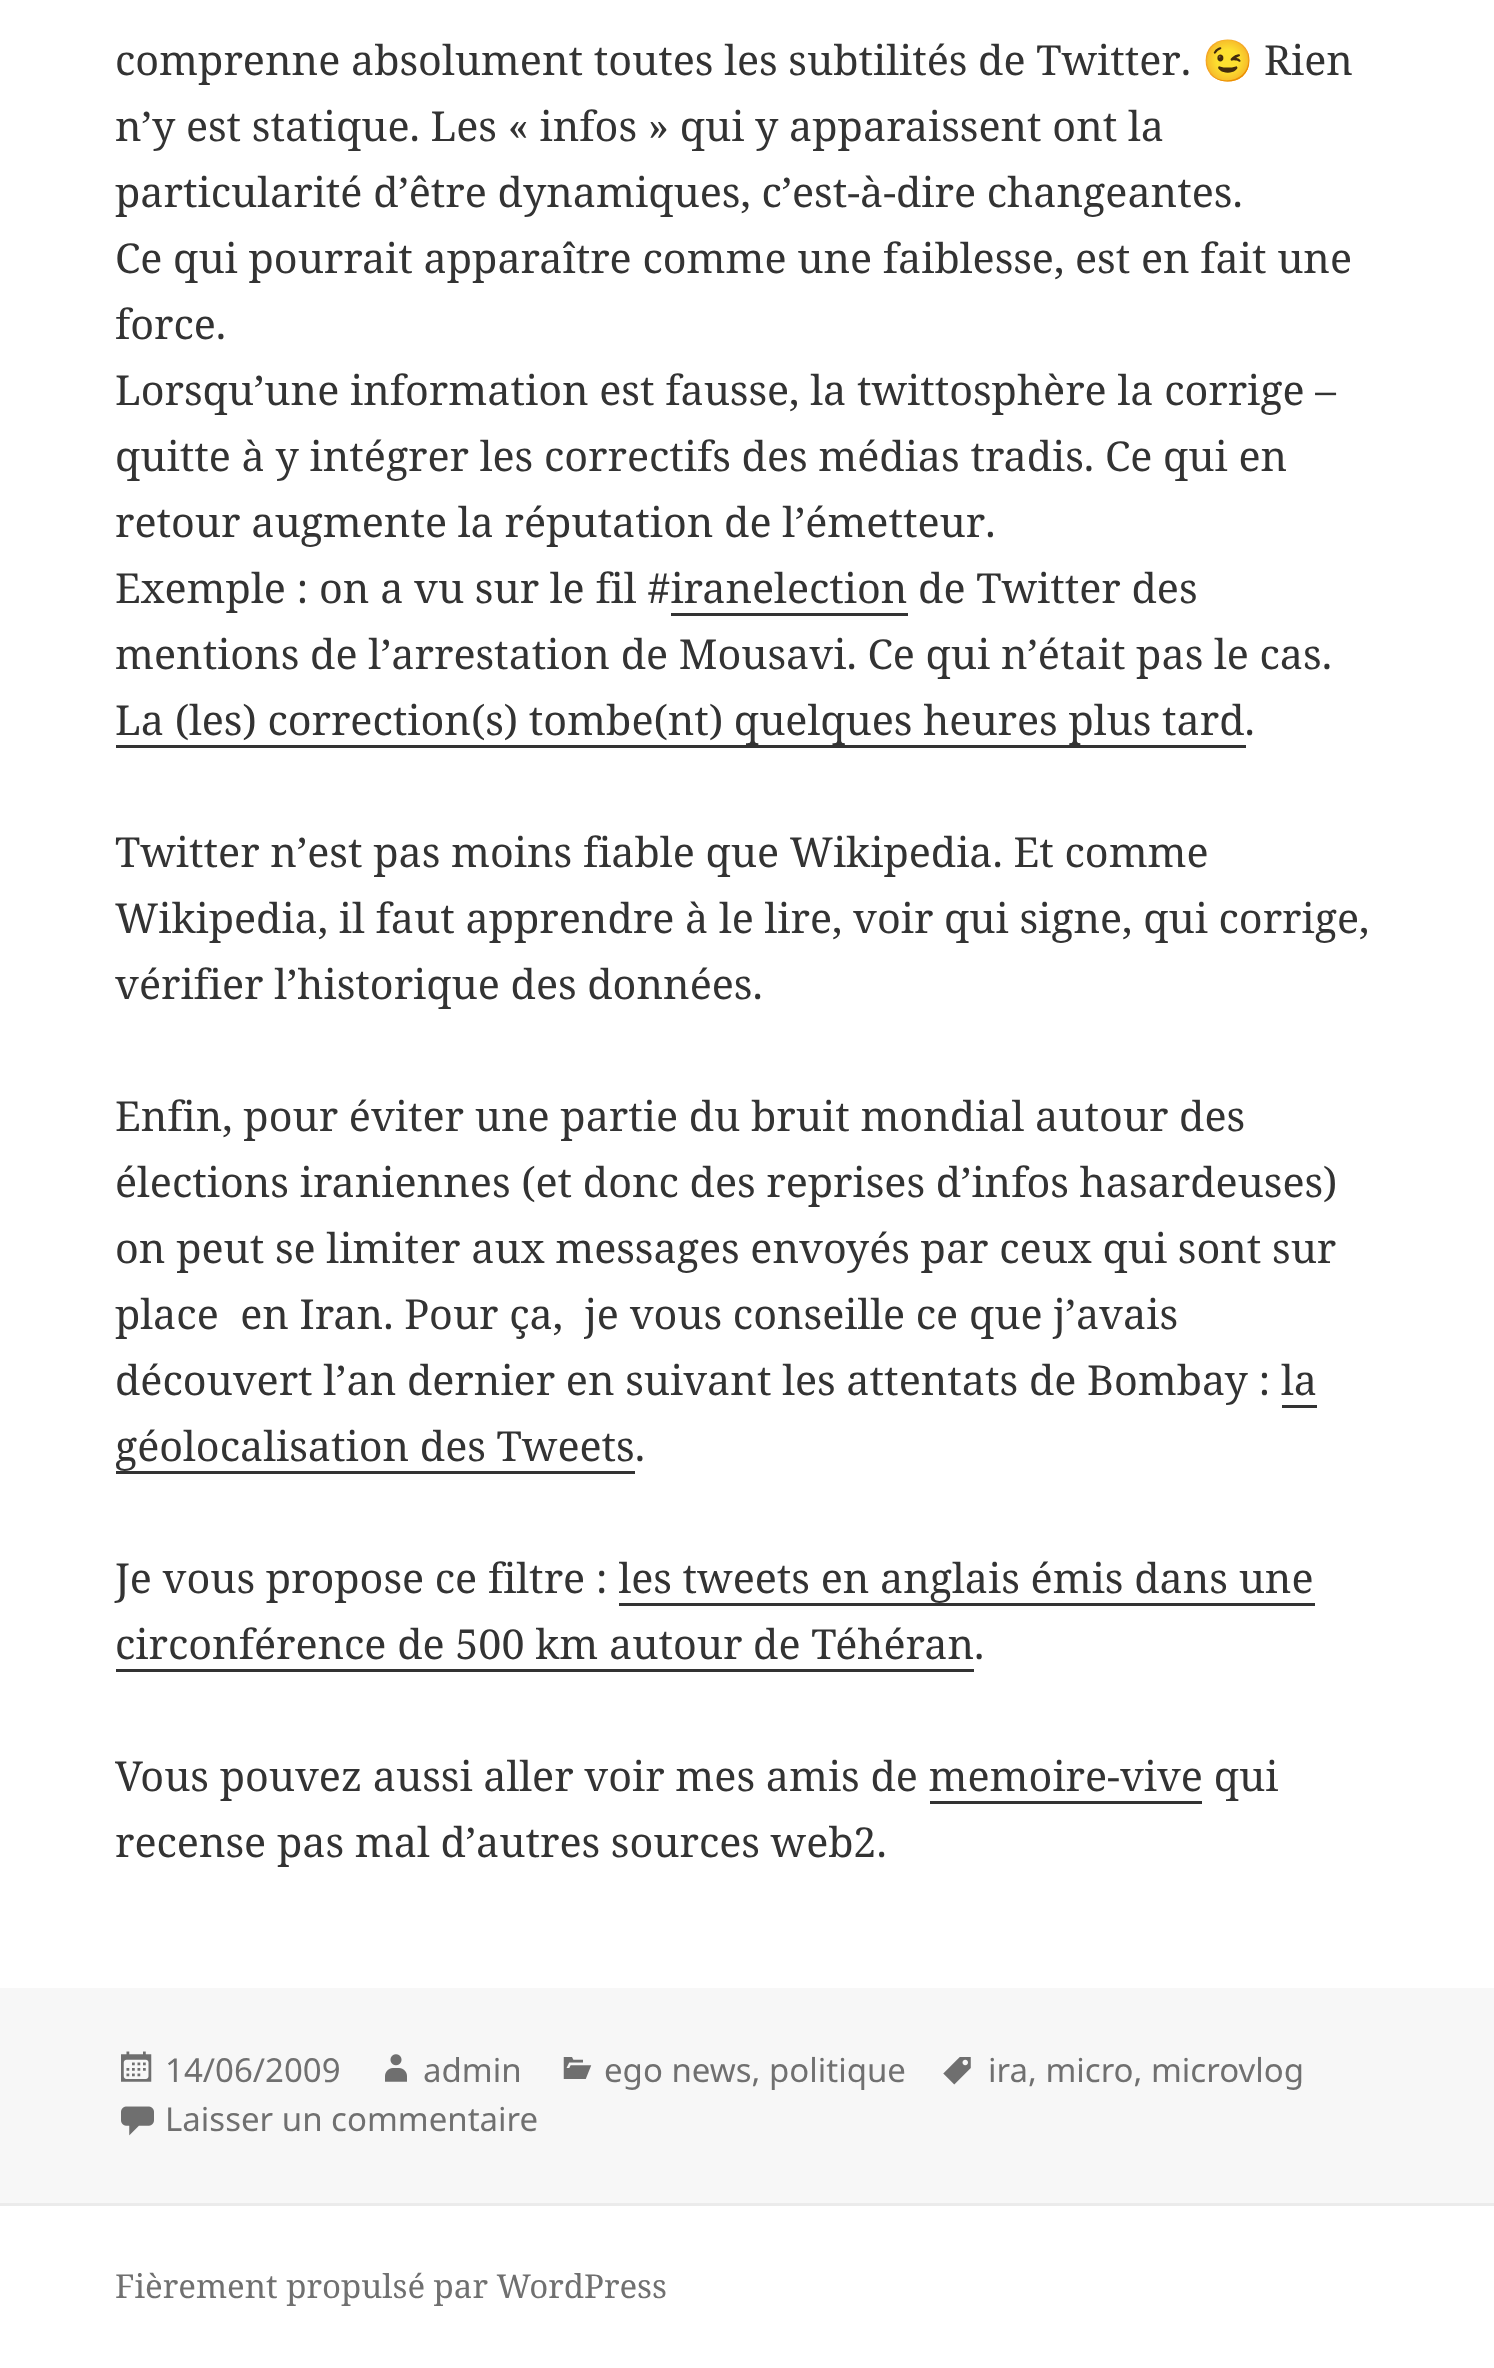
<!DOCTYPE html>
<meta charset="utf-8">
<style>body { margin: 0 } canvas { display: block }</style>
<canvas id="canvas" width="1494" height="2368"></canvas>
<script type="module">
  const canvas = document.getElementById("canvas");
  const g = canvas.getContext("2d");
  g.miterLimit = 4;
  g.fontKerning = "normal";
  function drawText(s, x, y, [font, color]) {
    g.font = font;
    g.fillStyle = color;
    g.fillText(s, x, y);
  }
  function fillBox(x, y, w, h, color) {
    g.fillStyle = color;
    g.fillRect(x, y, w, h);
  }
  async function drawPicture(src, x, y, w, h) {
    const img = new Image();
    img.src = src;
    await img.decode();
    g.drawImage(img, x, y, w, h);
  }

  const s1 = ["41.25px Noto Serif", "#333333"];
  const s2 = ["41.25px Noto Color Emoji", "#333333"];
  const s3 = ["33px Noto Sans", "#707070"];
  const s4 = ["33px Noto Serif", "#707070"];

  fillBox(0, 0, 1494, 2368, "#FFFFFF");
  drawText("comprenne absolument toutes les subtilités de Twitter.", 115, 75, s1);
  drawText("😉", 1202, 75, s2);
  drawText("Rien", 1264, 75, s1);
  drawText("n’y est statique. Les « infos » qui y apparaissent ont la", 115, 141, s1);
  drawText("particularité d’être dynamiques, c’est-à-dire changeantes.", 115, 207, s1);
  drawText("Ce qui pourrait apparaître comme une faiblesse, est en fait une", 115, 273, s1);
  drawText("force.", 115, 339, s1);
  drawText("Lorsqu’une information est fausse, la twittosphère la corrige –", 115, 405, s1);
  drawText("quitte à y intégrer les correctifs des médias tradis. Ce qui en", 115, 471, s1);
  drawText("retour augmente la réputation de l’émetteur.", 115, 537, s1);
  drawText("Exemple : on a vu sur le fil #iranelection de Twitter des", 115, 603, s1);
  fillBox(671, 613, 237, 3, "#333333");
  drawText("mentions de l’arrestation de Mousavi. Ce qui n’était pas le cas.", 115, 669, s1);
  drawText("La (les) correction(s) tombe(nt) quelques heures plus tard.", 115, 735, s1);
  fillBox(116, 745, 1130, 3, "#333333");
  drawText("Twitter n’est pas moins fiable que Wikipedia. Et comme", 115, 867, s1);
  drawText("Wikipedia, il faut apprendre à le lire, voir qui signe, qui corrige,", 115, 933, s1);
  drawText("vérifier l’historique des données.", 115, 999, s1);
  drawText("Enfin, pour éviter une partie du bruit mondial autour des", 115, 1131, s1);
  drawText("élections iraniennes (et donc des reprises d’infos hasardeuses)", 115, 1197, s1);
  drawText("on peut se limiter aux messages envoyés par ceux qui sont sur", 115, 1263, s1);
  drawText("place  en Iran. Pour ça,  je vous conseille ce que j’avais", 115, 1329, s1);
  drawText("découvert l’an dernier en suivant les attentats de Bombay : la", 115, 1395, s1);
  drawText("géolocalisation des Tweets.", 115, 1461, s1);
  fillBox(1282, 1405, 35, 3, "#333333");
  fillBox(116, 1471, 519, 3, "#333333");
  drawText("Je vous propose ce filtre : les tweets en anglais émis dans une", 115, 1593, s1);
  drawText("circonférence de 500 km autour de Téhéran.", 115, 1659, s1);
  fillBox(619, 1603, 696, 3, "#333333");
  fillBox(116, 1669, 858, 3, "#333333");
  drawText("Vous pouvez aussi aller voir mes amis de memoire-vive qui", 115, 1791, s1);
  fillBox(930, 1801, 272, 3, "#333333");
  drawText("recense pas mal d’autres sources web2.", 115, 1857, s1);
  fillBox(0, 1988, 1494, 215, "#F7F7F7");
  await drawPicture("pic1.png", 121, 2051, 31, 31);
  drawText("14/06/2009", 165, 2082, s3);
  await drawPicture("pic2.png", 385, 2054, 22, 28);
  drawText("admin", 423, 2082, s3);
  await drawPicture("pic3.png", 563, 2057, 29, 22);
  drawText("ego news, politique", 604, 2082, s3);
  await drawPicture("pic4.png", 943, 2057, 28, 28);
  drawText("ira, micro, microvlog", 988, 2082, s3);
  await drawPicture("pic5.png", 121, 2106, 33, 30);
  drawText("Laisser un commentaire", 165, 2131, s3);
  fillBox(0, 2203, 1494, 3, "#EBEBEB");
  drawText("Fièrement propulsé par WordPress", 115, 2298, s4);
</script>
